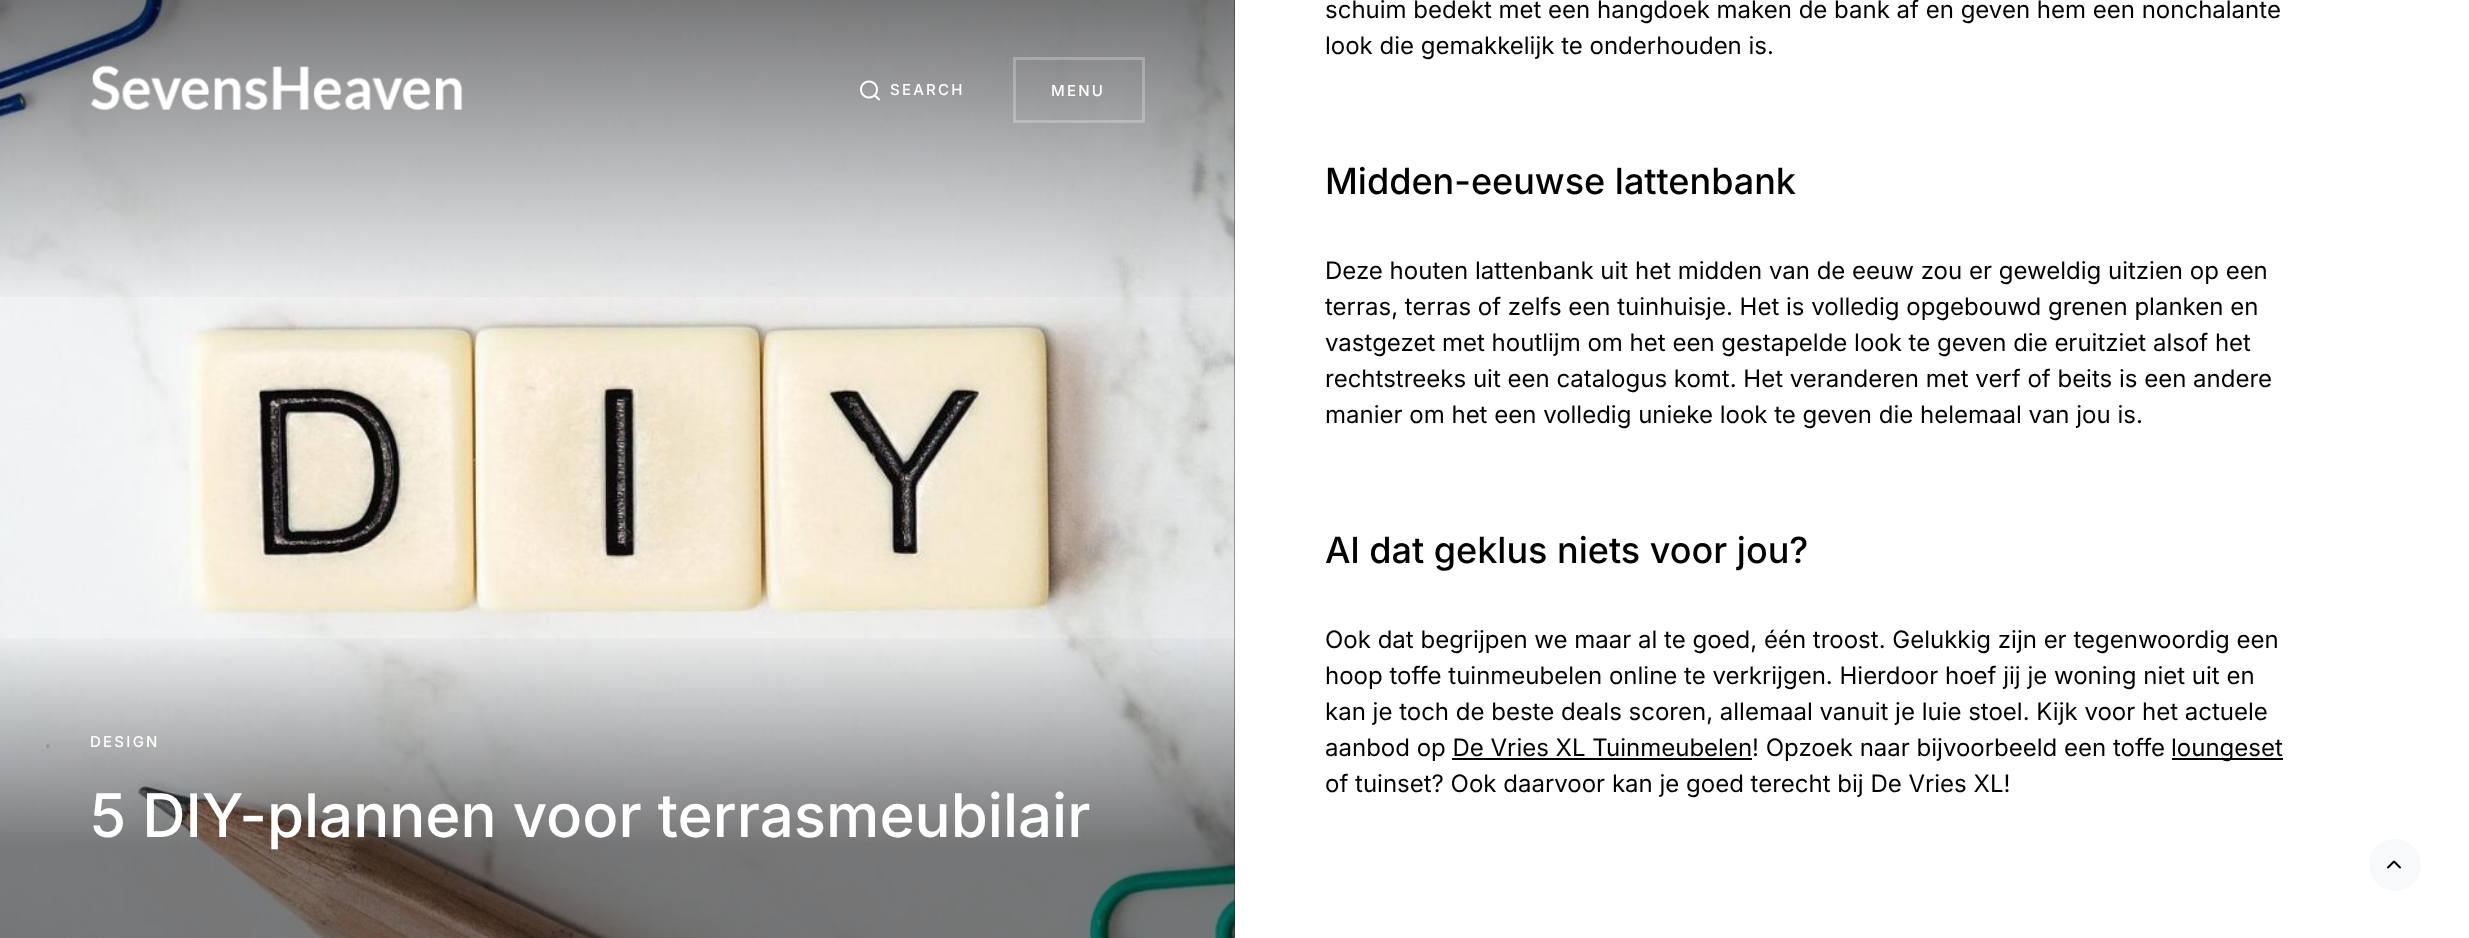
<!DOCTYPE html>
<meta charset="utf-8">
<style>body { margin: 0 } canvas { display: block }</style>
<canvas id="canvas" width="2469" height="938"></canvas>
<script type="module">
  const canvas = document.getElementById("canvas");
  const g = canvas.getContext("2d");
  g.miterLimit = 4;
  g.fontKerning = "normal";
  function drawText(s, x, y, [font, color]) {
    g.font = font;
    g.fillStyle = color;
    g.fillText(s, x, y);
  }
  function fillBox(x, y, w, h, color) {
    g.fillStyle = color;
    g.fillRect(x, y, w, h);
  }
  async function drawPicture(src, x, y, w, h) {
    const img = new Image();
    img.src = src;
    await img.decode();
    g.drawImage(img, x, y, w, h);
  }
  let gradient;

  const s1 = ["500 15px Inter", "#FFFFFF"];
  const s2 = ["500 60px Inter", "#FFFFFF"];
  const s3 = ["24px Inter", "#000000"];
  const s4 = ["500 36px Inter", "#000000"];

  fillBox(0, 0, 2469, 938, "#FFFFFF");
  fillBox(1234, 0, 1, 938, "#494949");
  await drawPicture("pic1.png", 0, 0, 1235, 938);
  gradient = g.createLinearGradient(617, 0, 617, 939);
  gradient.addColorStop(0, "rgba(0, 0, 0, 0.5)");
  gradient.addColorStop(0.33, "rgba(0, 0, 0, 0)");
  g.fillStyle = gradient;
  g.fillRect(0, 0, 1235, 297);
  gradient = g.createLinearGradient(617, 0, 617, 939);
  gradient.addColorStop(0.67, "rgba(0, 0, 0, 0)");
  gradient.addColorStop(0.9, "rgba(0, 0, 0, 0.5)");
  g.fillStyle = gradient;
  g.fillRect(0, 638, 1235, 300);
  await drawPicture("pic2.png", 91, 65, 372, 45);
  await drawPicture("pic3.png", 860, 80, 20, 21);
  g.letterSpacing = "2.25px";
  drawText("SEARCH", 890, 95, s1);
  g.strokeStyle = "rgba(255, 255, 255, 0.25)";
  g.lineWidth = 3;
  g.strokeRect(1014.5, 58.5, 129, 63);
  drawText("MENU", 1051, 96, s1);
  drawText("DESIGN", 90, 747, s1);
  g.letterSpacing = "0px";
  drawText("5 DIY-plannen voor terrasmeubilair", 90, 837, s2);
  drawText("schuim bedekt met een hangdoek maken de bank af en geven hem een nonchalante", 1325, 18, s3);
  drawText("look die gemakkelijk te onderhouden is.", 1325, 54, s3);
  drawText("Midden-eeuwse lattenbank", 1325, 194, s4);
  drawText("Deze houten lattenbank uit het midden van de eeuw zou er geweldig uitzien op een", 1325, 279, s3);
  drawText("terras, terras of zelfs een tuinhuisje. Het is volledig opgebouwd grenen planken en", 1325, 315, s3);
  drawText("vastgezet met houtlijm om het een gestapelde look te geven die eruitziet alsof het", 1325, 351, s3);
  drawText("rechtstreeks uit een catalogus komt. Het veranderen met verf of beits is een andere", 1325, 387, s3);
  drawText("manier om het een volledig unieke look te geven die helemaal van jou is.", 1325, 423, s3);
  drawText("Al dat geklus niets voor jou?", 1325, 563, s4);
  drawText("Ook dat begrijpen we maar al te goed, één troost. Gelukkig zijn er tegenwoordig een", 1325, 648, s3);
  drawText("hoop toffe tuinmeubelen online te verkrijgen. Hierdoor hoef jij je woning niet uit en", 1325, 684, s3);
  drawText("kan je toch de beste deals scoren, allemaal vanuit je luie stoel. Kijk voor het actuele", 1325, 720, s3);
  drawText("aanbod op De Vries XL Tuinmeubelen! Opzoek naar bijvoorbeeld een toffe", 1325, 756, s3);
  fillBox(2172, 758, 111, 2, "#000000");
  drawText("loungeset", 2171, 756, s3);
  fillBox(1452, 758, 300, 2, "#000000");
  drawText("of tuinset? Ook daarvoor kan je goed terecht bij De Vries XL!", 1325, 792, s3);
  g.fillStyle = "#F8F9FA";
  g.beginPath();
  g.arc(2395, 865, 26, 0, Math.PI * 2);
  g.fill();
  await drawPicture("pic4.png", 2387, 860, 14, 9);
</script>
